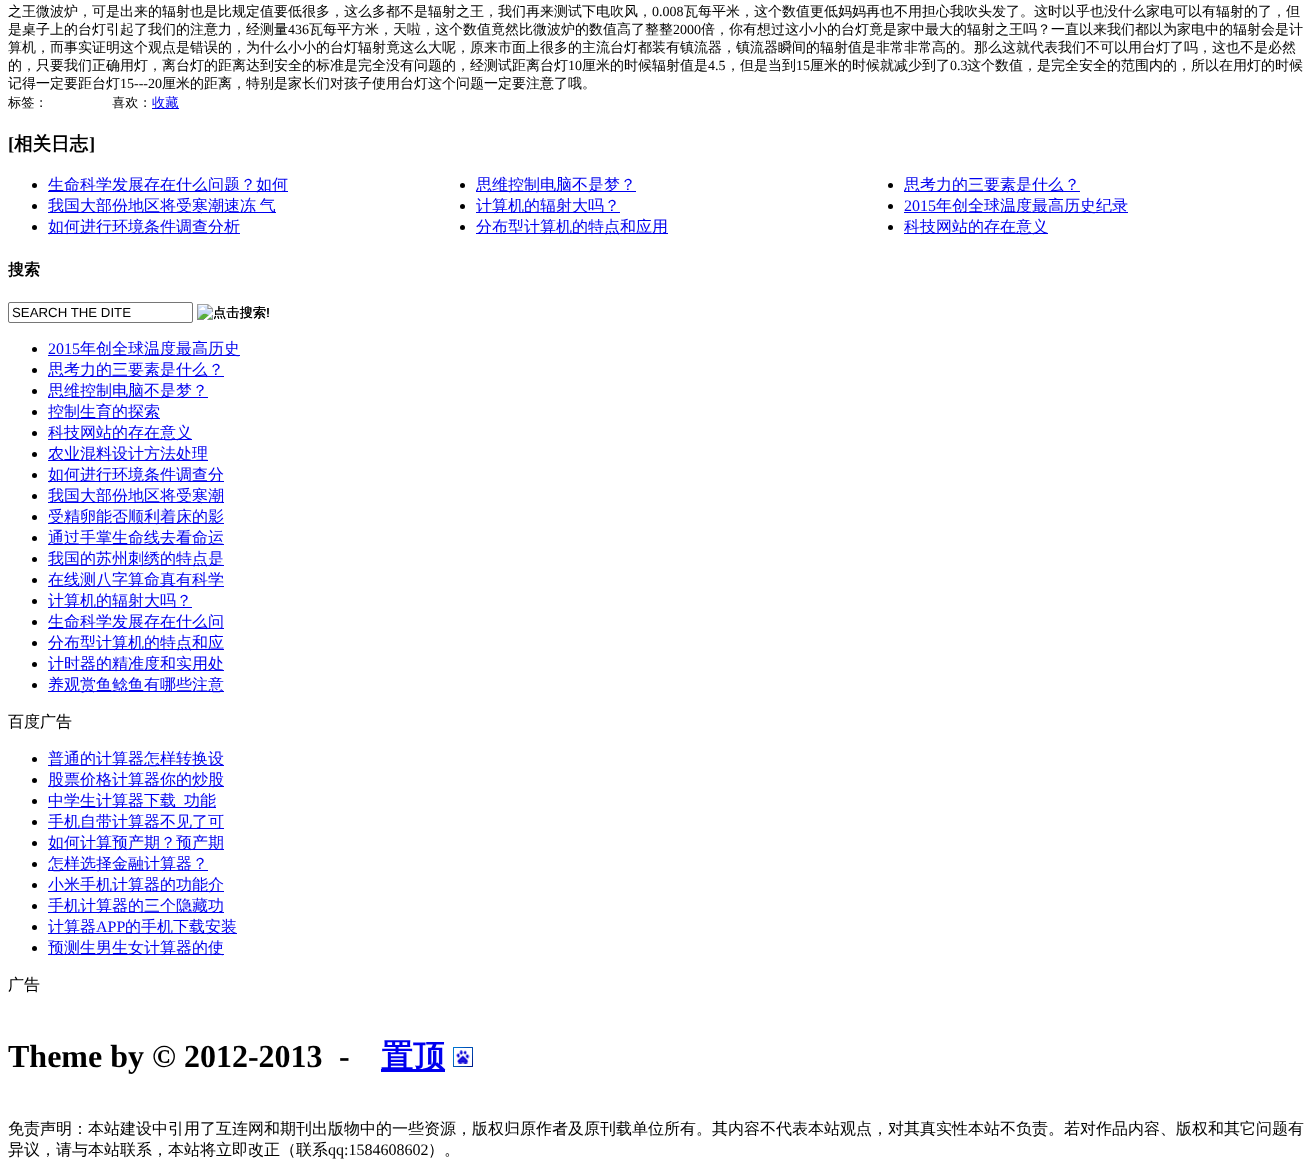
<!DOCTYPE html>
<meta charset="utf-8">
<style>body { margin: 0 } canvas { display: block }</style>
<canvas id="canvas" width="1315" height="1169"></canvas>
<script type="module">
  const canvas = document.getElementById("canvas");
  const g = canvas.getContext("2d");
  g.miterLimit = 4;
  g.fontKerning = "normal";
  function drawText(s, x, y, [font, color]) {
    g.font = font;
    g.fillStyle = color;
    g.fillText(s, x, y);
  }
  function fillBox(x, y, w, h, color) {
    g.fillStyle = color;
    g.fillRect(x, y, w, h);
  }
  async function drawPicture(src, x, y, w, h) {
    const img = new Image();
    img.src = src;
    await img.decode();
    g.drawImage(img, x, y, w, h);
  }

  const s1 = ["500 14px WenQuanYi Zen Hei", "#000000"];
  const s2 = ["14px Liberation Serif", "#000000"];
  const s3 = ["500 13.25px WenQuanYi Zen Hei", "#000000"];
  const s4 = ["500 13.25px WenQuanYi Zen Hei", "#0000EE"];
  const s5 = ["bold 18.5px Liberation Serif", "#000000"];
  const s6 = ["bold 18.5px WenQuanYi Zen Hei", "#000000"];
  const s7 = ["500 16px WenQuanYi Zen Hei", "#0000EE"];
  const s8 = ["16px Liberation Serif", "#0000EE"];
  const s9 = ["bold 16px WenQuanYi Zen Hei", "#000000"];
  const s10 = ["13.25px Liberation Sans", "#000000"];
  const s11 = ["500 16px WenQuanYi Zen Hei", "#000000"];
  const s12 = ["bold 32px Liberation Serif", "#000000"];
  const s13 = ["bold 32px WenQuanYi Zen Hei", "#0000EE"];
  const s14 = ["16px Liberation Serif", "#000000"];

  fillBox(0, 0, 1315, 1169, "#FFFFFF");
  drawText("之王微波炉，可是出来的辐射也是比规定值要低很多，这么多都不是辐射之王，我们再来测试下电吹风，", 8, 16, s1);
  drawText("0.008", 652, 16, s2);
  drawText("瓦每平米，这个数值更低妈妈再也不用担心我吹头发了。这时以乎也没什么家电可以有辐射的了，但", 684, 16, s1);
  drawText("是桌子上的台灯引起了我们的注意力，经测量", 8, 34, s1);
  drawText("436", 288, 34, s2);
  drawText("瓦每平方米，天啦，这个数值竟然比微波炉的数值高了整整", 309, 34, s1);
  drawText("2000", 673, 34, s2);
  drawText("倍，你有想过这小小的台灯竟是家中最大的辐射之王吗？一直以来我们都以为家电中的辐射会是计", 701, 34, s1);
  drawText("算机，而事实证明这个观点是错误的，为什么小小的台灯辐射竟这么大呢，原来市面上很多的主流台灯都装有镇流器，镇流器瞬间的辐射值是非常非常高的。那么这就代表我们不可以用台灯了吗，这也不是必然", 8, 52, s1);
  drawText("的，只要我们正确用灯，离台灯的距离达到安全的标准是完全没有问题的，经测试距离台灯", 8, 70, s1);
  drawText("10", 568, 70, s2);
  drawText("厘米的时候辐射值是", 582, 70, s1);
  drawText("4.5", 708, 70, s2);
  drawText("，但是当到", 726, 70, s1);
  drawText("15", 796, 70, s2);
  drawText("厘米的时候就减少到了", 810, 70, s1);
  drawText("0.3", 950, 70, s2);
  drawText("这个数值，是完全安全的范围内的，所以在用灯的时候", 967, 70, s1);
  drawText("记得一定要距台灯", 8, 88, s1);
  drawText("15---20", 120, 88, s2);
  drawText("厘米的距离，特别是家长们对孩子使用台灯这个问题一定要注意了哦。", 162, 88, s1);
  drawText("标签：", 8, 107, s3);
  drawText("喜欢：", 112, 107, s3);
  fillBox(152, 108, 27, 1, "#0000EE");
  drawText("收藏", 152, 107, s4);
  drawText("[", 8, 150, s5);
  drawText("相关日志", 14, 150, s6);
  drawText("]", 89, 150, s5);
  g.beginPath();
  g.arc(34.5, 185.5, 2.5, 0, Math.PI * 2);
  g.fill();
  fillBox(48, 191, 240, 1, "#0000EE");
  drawText("生命科学发展存在什么问题？如何", 48, 190, s7);
  g.fillStyle = "#000000";
  g.beginPath();
  g.arc(462.5, 185.5, 2.5, 0, Math.PI * 2);
  g.fill();
  fillBox(476, 191, 160, 1, "#0000EE");
  drawText("思维控制电脑不是梦？", 476, 190, s7);
  g.fillStyle = "#000000";
  g.beginPath();
  g.arc(890.5, 185.5, 2.5, 0, Math.PI * 2);
  g.fill();
  fillBox(904, 191, 176, 1, "#0000EE");
  drawText("思考力的三要素是什么？", 904, 190, s7);
  g.fillStyle = "#000000";
  g.beginPath();
  g.arc(34.5, 206.5, 2.5, 0, Math.PI * 2);
  g.fill();
  fillBox(48, 212, 228, 1, "#0000EE");
  g.wordSpacing = "-1px";
  drawText("我国大部份地区将受寒潮速冻 气", 48, 211, s7);
  g.fillStyle = "#000000";
  g.beginPath();
  g.arc(462.5, 206.5, 2.5, 0, Math.PI * 2);
  g.fill();
  fillBox(476, 212, 144, 1, "#0000EE");
  g.wordSpacing = "0px";
  drawText("计算机的辐射大吗？", 476, 211, s7);
  g.fillStyle = "#000000";
  g.beginPath();
  g.arc(890.5, 206.5, 2.5, 0, Math.PI * 2);
  g.fill();
  drawText("2015", 904, 211, s8);
  fillBox(904, 212, 224, 1, "#0000EE");
  drawText("年创全球温度最高历史纪录", 936, 211, s7);
  g.fillStyle = "#000000";
  g.beginPath();
  g.arc(34.5, 227.5, 2.5, 0, Math.PI * 2);
  g.fill();
  fillBox(48, 233, 192, 1, "#0000EE");
  drawText("如何进行环境条件调查分析", 48, 232, s7);
  g.fillStyle = "#000000";
  g.beginPath();
  g.arc(462.5, 227.5, 2.5, 0, Math.PI * 2);
  g.fill();
  fillBox(476, 233, 192, 1, "#0000EE");
  drawText("分布型计算机的特点和应用", 476, 232, s7);
  g.fillStyle = "#000000";
  g.beginPath();
  g.arc(890.5, 227.5, 2.5, 0, Math.PI * 2);
  g.fill();
  fillBox(904, 233, 144, 1, "#0000EE");
  drawText("科技网站的存在意义", 904, 232, s7);
  drawText("搜索", 8, 275, s9);
  g.beginPath();
  g.roundRect(8.5, 302.5, 184, 20, 1.5);
  g.strokeStyle = "#767676";
  g.stroke();
  drawText("SEARCH THE DITE", 12, 317, s10);
  await drawPicture("pic1.png", 197, 304, 72, 16);
  drawText("点击搜索", 213, 317, s3);
  drawText("!", 266, 317, s10);
  g.beginPath();
  g.arc(34.5, 349.5, 2.5, 0, Math.PI * 2);
  g.fill();
  drawText("2015", 48, 354, s8);
  fillBox(48, 355, 192, 1, "#0000EE");
  drawText("年创全球温度最高历史", 80, 354, s7);
  g.fillStyle = "#000000";
  g.beginPath();
  g.arc(34.5, 370.5, 2.5, 0, Math.PI * 2);
  g.fill();
  fillBox(48, 376, 176, 1, "#0000EE");
  drawText("思考力的三要素是什么？", 48, 375, s7);
  g.fillStyle = "#000000";
  g.beginPath();
  g.arc(34.5, 391.5, 2.5, 0, Math.PI * 2);
  g.fill();
  fillBox(48, 397, 160, 1, "#0000EE");
  drawText("思维控制电脑不是梦？", 48, 396, s7);
  g.fillStyle = "#000000";
  g.beginPath();
  g.arc(34.5, 412.5, 2.5, 0, Math.PI * 2);
  g.fill();
  fillBox(48, 418, 112, 1, "#0000EE");
  drawText("控制生育的探索", 48, 417, s7);
  g.fillStyle = "#000000";
  g.beginPath();
  g.arc(34.5, 433.5, 2.5, 0, Math.PI * 2);
  g.fill();
  fillBox(48, 439, 144, 1, "#0000EE");
  drawText("科技网站的存在意义", 48, 438, s7);
  g.fillStyle = "#000000";
  g.beginPath();
  g.arc(34.5, 454.5, 2.5, 0, Math.PI * 2);
  g.fill();
  fillBox(48, 460, 160, 1, "#0000EE");
  drawText("农业混料设计方法处理", 48, 459, s7);
  g.fillStyle = "#000000";
  g.beginPath();
  g.arc(34.5, 475.5, 2.5, 0, Math.PI * 2);
  g.fill();
  fillBox(48, 481, 176, 1, "#0000EE");
  drawText("如何进行环境条件调查分", 48, 480, s7);
  g.fillStyle = "#000000";
  g.beginPath();
  g.arc(34.5, 496.5, 2.5, 0, Math.PI * 2);
  g.fill();
  fillBox(48, 502, 176, 1, "#0000EE");
  drawText("我国大部份地区将受寒潮", 48, 501, s7);
  g.fillStyle = "#000000";
  g.beginPath();
  g.arc(34.5, 517.5, 2.5, 0, Math.PI * 2);
  g.fill();
  fillBox(48, 523, 176, 1, "#0000EE");
  drawText("受精卵能否顺利着床的影", 48, 522, s7);
  g.fillStyle = "#000000";
  g.beginPath();
  g.arc(34.5, 538.5, 2.5, 0, Math.PI * 2);
  g.fill();
  fillBox(48, 544, 176, 1, "#0000EE");
  drawText("通过手掌生命线去看命运", 48, 543, s7);
  g.fillStyle = "#000000";
  g.beginPath();
  g.arc(34.5, 559.5, 2.5, 0, Math.PI * 2);
  g.fill();
  fillBox(48, 565, 176, 1, "#0000EE");
  drawText("我国的苏州刺绣的特点是", 48, 564, s7);
  g.fillStyle = "#000000";
  g.beginPath();
  g.arc(34.5, 580.5, 2.5, 0, Math.PI * 2);
  g.fill();
  fillBox(48, 586, 176, 1, "#0000EE");
  drawText("在线测八字算命真有科学", 48, 585, s7);
  g.fillStyle = "#000000";
  g.beginPath();
  g.arc(34.5, 601.5, 2.5, 0, Math.PI * 2);
  g.fill();
  fillBox(48, 607, 144, 1, "#0000EE");
  drawText("计算机的辐射大吗？", 48, 606, s7);
  g.fillStyle = "#000000";
  g.beginPath();
  g.arc(34.5, 622.5, 2.5, 0, Math.PI * 2);
  g.fill();
  fillBox(48, 628, 176, 1, "#0000EE");
  drawText("生命科学发展存在什么问", 48, 627, s7);
  g.fillStyle = "#000000";
  g.beginPath();
  g.arc(34.5, 643.5, 2.5, 0, Math.PI * 2);
  g.fill();
  fillBox(48, 649, 176, 1, "#0000EE");
  drawText("分布型计算机的特点和应", 48, 648, s7);
  g.fillStyle = "#000000";
  g.beginPath();
  g.arc(34.5, 664.5, 2.5, 0, Math.PI * 2);
  g.fill();
  fillBox(48, 670, 176, 1, "#0000EE");
  drawText("计时器的精准度和实用处", 48, 669, s7);
  g.fillStyle = "#000000";
  g.beginPath();
  g.arc(34.5, 685.5, 2.5, 0, Math.PI * 2);
  g.fill();
  fillBox(48, 691, 176, 1, "#0000EE");
  drawText("养观赏鱼鲶鱼有哪些注意", 48, 690, s7);
  drawText("百度广告", 8, 727, s11);
  g.beginPath();
  g.arc(34.5, 759.5, 2.5, 0, Math.PI * 2);
  g.fill();
  fillBox(48, 765, 176, 1, "#0000EE");
  drawText("普通的计算器怎样转换设", 48, 764, s7);
  g.fillStyle = "#000000";
  g.beginPath();
  g.arc(34.5, 780.5, 2.5, 0, Math.PI * 2);
  g.fill();
  fillBox(48, 786, 176, 1, "#0000EE");
  drawText("股票价格计算器你的炒股", 48, 785, s7);
  g.fillStyle = "#000000";
  g.beginPath();
  g.arc(34.5, 801.5, 2.5, 0, Math.PI * 2);
  g.fill();
  fillBox(48, 807, 168, 1, "#0000EE");
  drawText("中学生计算器下载", 48, 806, s7);
  drawText("功能", 184, 806, s7);
  g.fillStyle = "#000000";
  g.beginPath();
  g.arc(34.5, 822.5, 2.5, 0, Math.PI * 2);
  g.fill();
  fillBox(48, 828, 176, 1, "#0000EE");
  drawText("手机自带计算器不见了可", 48, 827, s7);
  g.fillStyle = "#000000";
  g.beginPath();
  g.arc(34.5, 843.5, 2.5, 0, Math.PI * 2);
  g.fill();
  fillBox(48, 849, 176, 1, "#0000EE");
  drawText("如何计算预产期？预产期", 48, 848, s7);
  g.fillStyle = "#000000";
  g.beginPath();
  g.arc(34.5, 864.5, 2.5, 0, Math.PI * 2);
  g.fill();
  fillBox(48, 870, 160, 1, "#0000EE");
  drawText("怎样选择金融计算器？", 48, 869, s7);
  g.fillStyle = "#000000";
  g.beginPath();
  g.arc(34.5, 885.5, 2.5, 0, Math.PI * 2);
  g.fill();
  fillBox(48, 891, 176, 1, "#0000EE");
  drawText("小米手机计算器的功能介", 48, 890, s7);
  g.fillStyle = "#000000";
  g.beginPath();
  g.arc(34.5, 906.5, 2.5, 0, Math.PI * 2);
  g.fill();
  fillBox(48, 912, 176, 1, "#0000EE");
  drawText("手机计算器的三个隐藏功", 48, 911, s7);
  g.fillStyle = "#000000";
  g.beginPath();
  g.arc(34.5, 927.5, 2.5, 0, Math.PI * 2);
  g.fill();
  fillBox(48, 933, 189, 1, "#0000EE");
  drawText("计算器", 48, 932, s7);
  drawText("APP", 96, 932, s8);
  drawText("的手机下载安装", 125, 932, s7);
  g.fillStyle = "#000000";
  g.beginPath();
  g.arc(34.5, 948.5, 2.5, 0, Math.PI * 2);
  g.fill();
  fillBox(48, 954, 176, 1, "#0000EE");
  drawText("预测生男生女计算器的使", 48, 953, s7);
  drawText("广告", 8, 990, s11);
  drawText("Theme by © 2012-2013", 8, 1067, s12);
  drawText("-", 339, 1067, s12);
  fillBox(381, 1069, 64, 3, "#0000EE");
  drawText("置顶", 381, 1067, s13);
  await drawPicture("pic2.png", 453, 1047, 20, 20);
  drawText("免责声明：本站建设中引用了互连网和期刊出版物中的一些资源，版权归原作者及原刊载单位所有。其内容不代表本站观点，对其真实性本站不负责。若对作品内容、版权和其它问题有", 8, 1134, s11);
  drawText("异议，请与本站联系，本站将立即改正（联系", 8, 1155, s11);
  drawText("qq:1584608602", 328, 1155, s14);
  drawText("）。", 428, 1155, s11);
</script>
